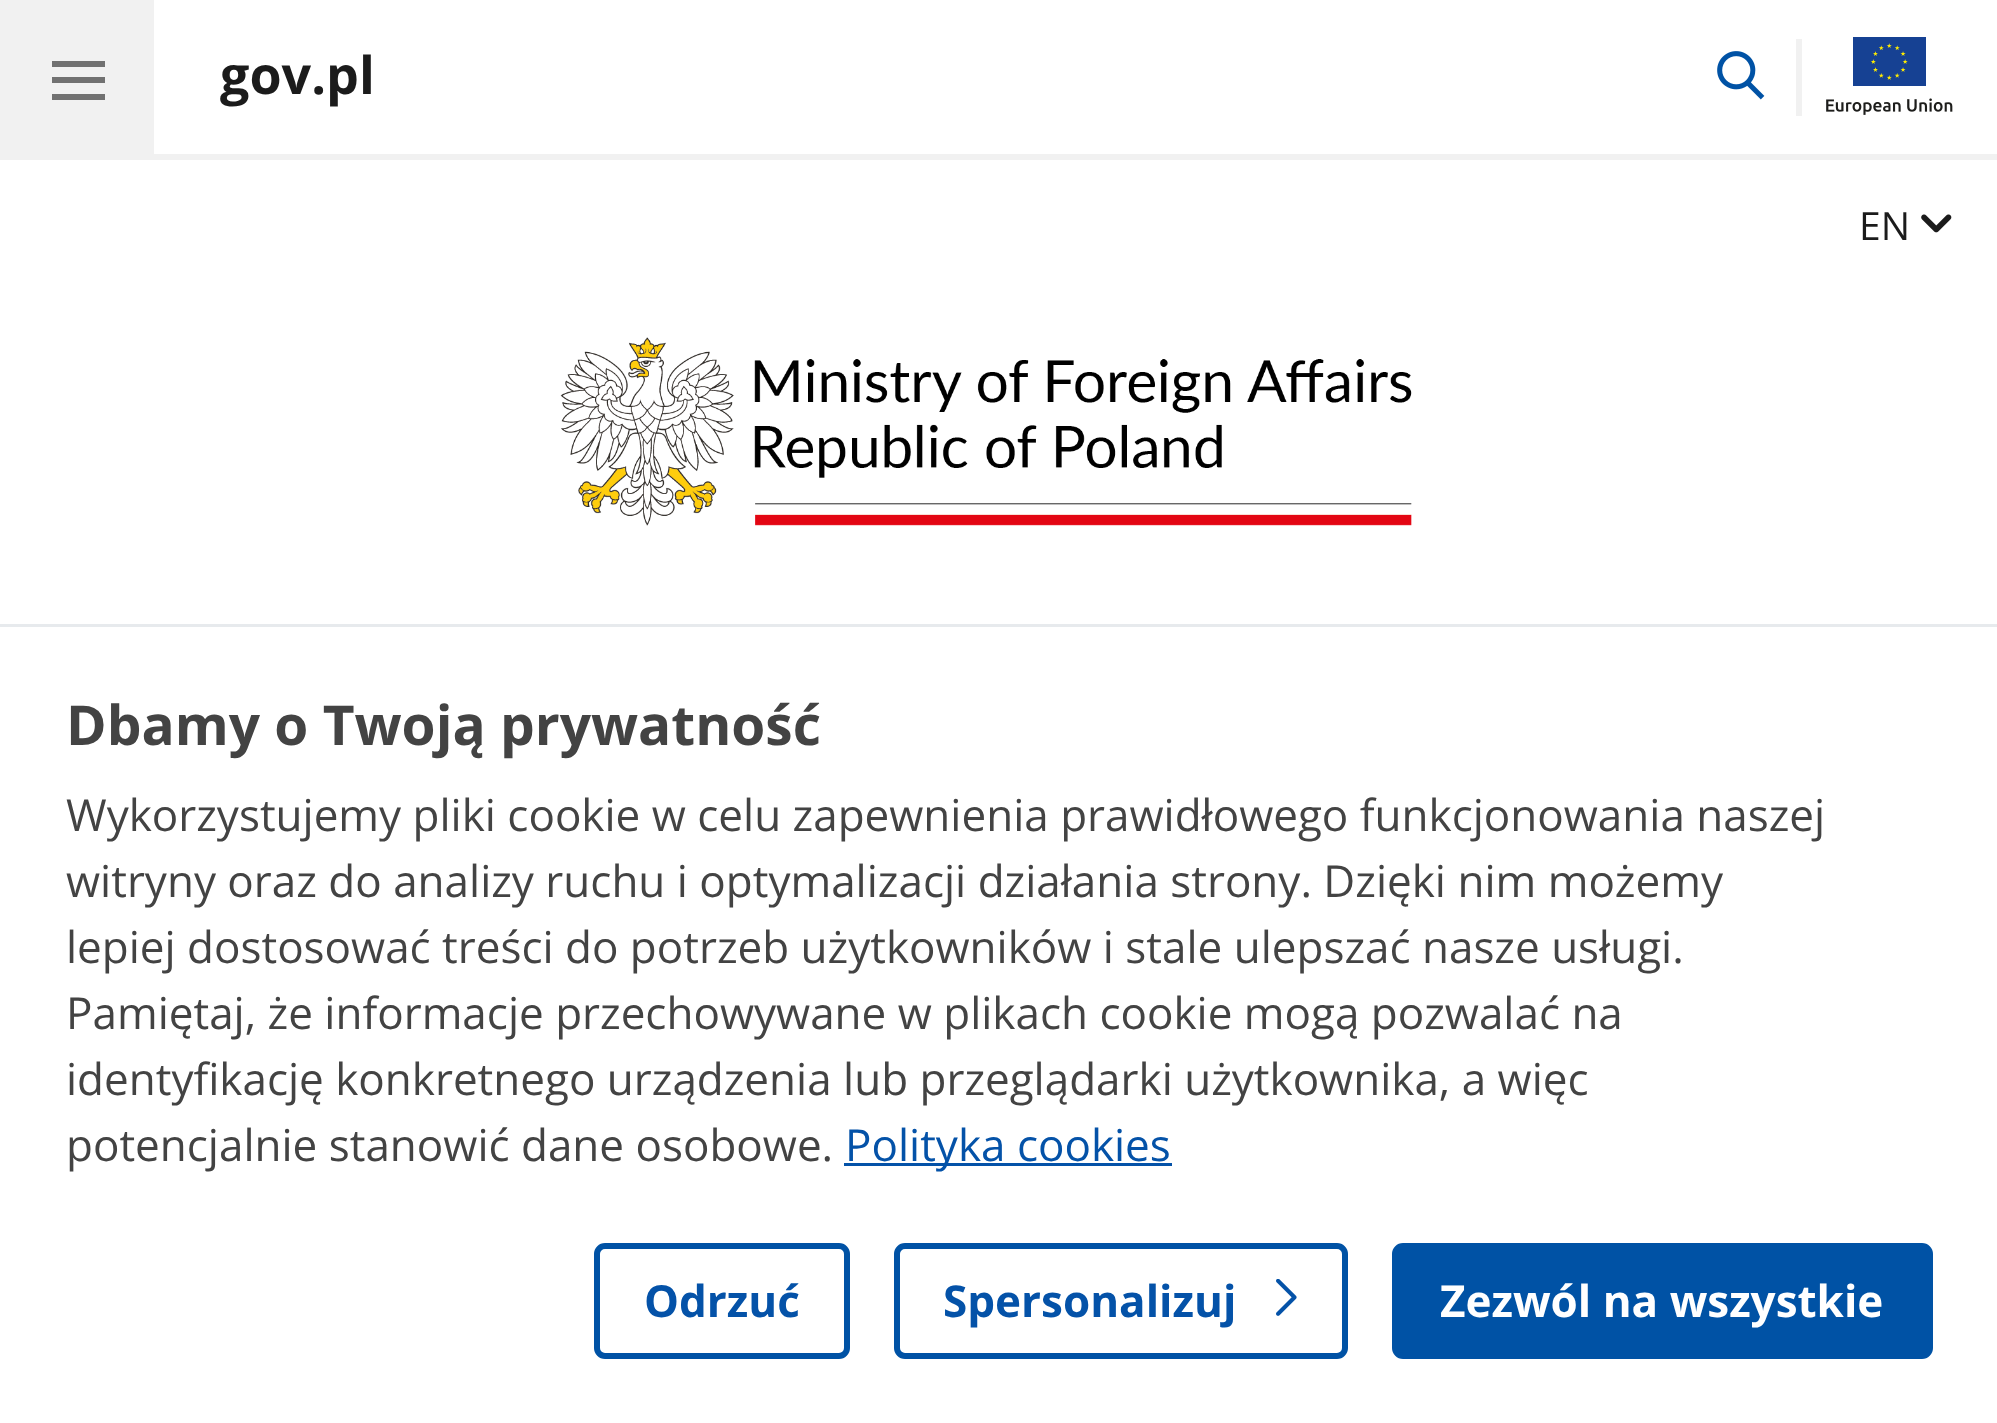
<!DOCTYPE html>
<meta charset="utf-8">
<style>body { margin: 0 } canvas { display: block }</style>
<canvas id="canvas" width="1997" height="1423"></canvas>
<script type="module">
  const canvas = document.getElementById("canvas");
  const g = canvas.getContext("2d");
  g.miterLimit = 4;
  g.fontKerning = "normal";
  function drawText(s, x, y, [font, color]) {
    g.font = font;
    g.fillStyle = color;
    g.fillText(s, x, y);
  }
  function fillBox(x, y, w, h, color) {
    g.fillStyle = color;
    g.fillRect(x, y, w, h);
  }
  async function drawPicture(src, x, y, w, h) {
    const img = new Image();
    img.src = src;
    await img.decode();
    g.drawImage(img, x, y, w, h);
  }

  const s1 = ["bold 52px Open Sans", "#1B1B1B"];
  const s2 = ["39px Open Sans", "#1B1B1B"];
  const s3 = ["bold 55px Open Sans", "#434343"];
  const s4 = ["44px Open Sans", "#434343"];
  const s5 = ["44px Open Sans", "#0452A8"];
  const s6 = ["bold 44px Open Sans", "#0452A8"];
  const s7 = ["bold 44px Open Sans", "#FFFFFF"];

  fillBox(0, 0, 1997, 1423, "#FFFFFF");
  fillBox(0, 154, 1997, 6, "#F1F1F1");
  fillBox(0, 0, 154, 154, "#F1F1F1");
  fillBox(52, 61, 53, 6, "#717171");
  fillBox(52, 77, 53, 6, "#717171");
  fillBox(52, 94, 53, 6, "#717171");
  drawText("gov.pl", 220, 94, s1);
  await drawPicture("pic1.png", 1717, 51, 48, 49);
  fillBox(1796, 39, 6, 77, "#F1F1F1");
  await drawPicture("pic2.png", 1826, 37, 127, 78);
  drawText("EN", 1859, 240, s2);
  await drawPicture("pic3.png", 1921, 214, 31, 19);
  await drawPicture("pic4.png", 560, 337, 852, 189);
  fillBox(0, 624, 1997, 3, "#E7EAED");
  drawText("Dbamy o Twoją prywatność", 66, 745, s3);
  drawText("Wykorzystujemy pliki cookie w celu zapewnienia prawidłowego funkcjonowania naszej", 66, 831, s4);
  drawText("witryny oraz do analizy ruchu i optymalizacji działania strony. Dzięki nim możemy", 66, 897, s4);
  drawText("lepiej dostosować treści do potrzeb użytkowników i stale ulepszać nasze usługi.", 66, 963, s4);
  drawText("Pamiętaj, że informacje przechowywane w plikach cookie mogą pozwalać na", 66, 1029, s4);
  drawText("identyfikację konkretnego urządzenia lub przeglądarki użytkownika, a więc", 66, 1095, s4);
  drawText("potencjalnie stanowić dane osobowe.", 66, 1161, s4);
  fillBox(844, 1163, 328, 3, "#0452A8");
  drawText("Polityka cookies", 845, 1161, s5);
  g.beginPath();
  g.roundRect(597, 1246, 250, 110, 8);
  g.strokeStyle = "#0052A5";
  g.lineWidth = 6;
  g.stroke();
  drawText("Odrzuć", 644, 1317, s6);
  g.beginPath();
  g.roundRect(897, 1246, 448, 110, 8);
  g.stroke();
  drawText("Spersonalizuj", 943, 1317, s6);
  await drawPicture("pic5.png", 1276, 1279, 21, 37);
  g.fillStyle = "#0052A5";
  g.beginPath();
  g.roundRect(1395, 1246, 535, 110, 8);
  g.fill();
  g.stroke();
  drawText("Zezwól na wszystkie", 1440, 1317, s7);
</script>
